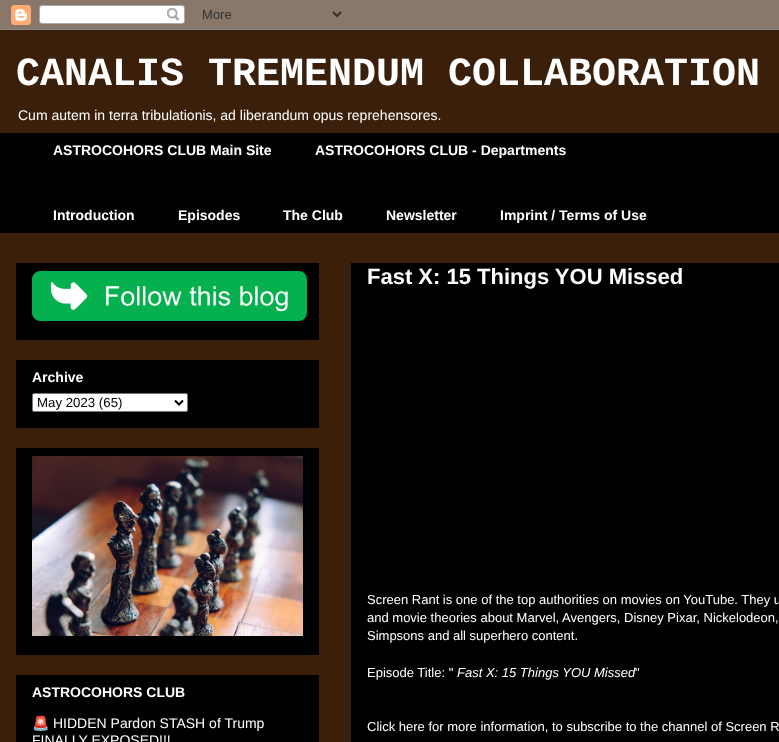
<!DOCTYPE html>
<meta charset="utf-8">
<style>body { margin: 0 } canvas { display: block }</style>
<canvas id="canvas" width="779" height="742"></canvas>
<script type="module">
  const canvas = document.getElementById("canvas");
  const g = canvas.getContext("2d");
  g.miterLimit = 4;
  g.fontKerning = "normal";
  function drawText(s, x, y, [font, color]) {
    g.font = font;
    g.fillStyle = color;
    g.fillText(s, x, y);
  }
  function fillBox(x, y, w, h, color) {
    g.fillStyle = color;
    g.fillRect(x, y, w, h);
  }
  async function drawPicture(src, x, y, w, h) {
    const img = new Image();
    img.src = src;
    await img.decode();
    g.drawImage(img, x, y, w, h);
  }

  const s1 = ["bold 40px Liberation Mono", "#FFFFFF"];
  const s2 = ["14px Liberation Sans", "#FFFFFF"];
  const s3 = ["bold 14px Liberation Sans", "#FFFFFF"];
  const s4 = ["13.25px Liberation Sans", "#000000"];
  const s5 = ["14px Noto Color Emoji", "#FFFFFF"];
  const s6 = ["bold 22px Liberation Sans", "#FFFFFF"];
  const s7 = ["13px Liberation Sans", "#FFFFFF"];
  const s8 = ["italic 13px Liberation Sans", "#FFFFFF"];

  fillBox(0, 0, 779, 742, "#3A1F0A");
  await drawPicture("pic1.png", 0, 0, 779, 30);
  drawText("CANALIS TREMENDUM COLLABORATION", 16, 85, s1);
  drawText("Cum autem in terra tribulationis, ad liberandum opus reprehensores.", 18, 120, s2);
  fillBox(0, 133, 779, 100, "#000000");
  drawText("ASTROCOHORS CLUB Main Site", 53, 155, s3);
  drawText("ASTROCOHORS CLUB - Departments", 315, 155, s3);
  drawText("Introduction", 53, 220, s3);
  drawText("Episodes", 178, 220, s3);
  drawText("The Club", 283, 220, s3);
  drawText("Newsletter", 386, 220, s3);
  drawText("Imprint / Terms of Use", 500, 220, s3);
  fillBox(16, 263, 303, 77, "#000000");
  await drawPicture("pic2.png", 32, 271, 275, 50);
  fillBox(16, 360, 303, 68, "#000000");
  drawText("Archive", 32, 382, s3);
  g.beginPath();
  g.roundRect(32.5, 393.5, 155, 18, 1.5);
  g.fill();
  g.strokeStyle = "#767676";
  g.stroke();
  g.beginPath();
  g.moveTo(175, 400.5);
  g.lineTo(179, 404.5);
  g.lineTo(183, 400.5);
  g.strokeStyle = "#000000";
  g.lineWidth = 2;
  g.stroke();
  drawText("May 2023 (65)", 37, 407, s4);
  fillBox(16, 448, 303, 207, "#000000");
  await drawPicture("pic3.png", 32, 456, 271, 180);
  fillBox(16, 675, 303, 67, "#000000");
  drawText("ASTROCOHORS CLUB", 32, 697, s3);
  drawText("🚨", 32, 728, s5);
  drawText("HIDDEN Pardon STASH of Trump", 53, 728, s2);
  drawText("FINALLY EXPOSED!!!", 32, 745, s2);
  fillBox(351, 263, 428, 479, "#000000");
  drawText("Fast X: 15 Things YOU Missed", 367, 284, s6);
  drawText("Screen Rant is one of the top authorities on movies on YouTube. They u", 367, 604, s7);
  drawText("and movie theories about Marvel, Avengers, Disney Pixar, Nickelodeon,", 367, 622, s7);
  drawText("Simpsons and all superhero content.", 367, 640, s7);
  drawText("Episode Title: \"", 367, 677, s7);
  drawText("Fast X: 15 Things YOU Missed", 457, 677, s8);
  drawText("\"", 635, 677, s7);
  drawText("Click here for more information, to subscribe to the channel of Screen R", 367, 731, s7);
</script>
